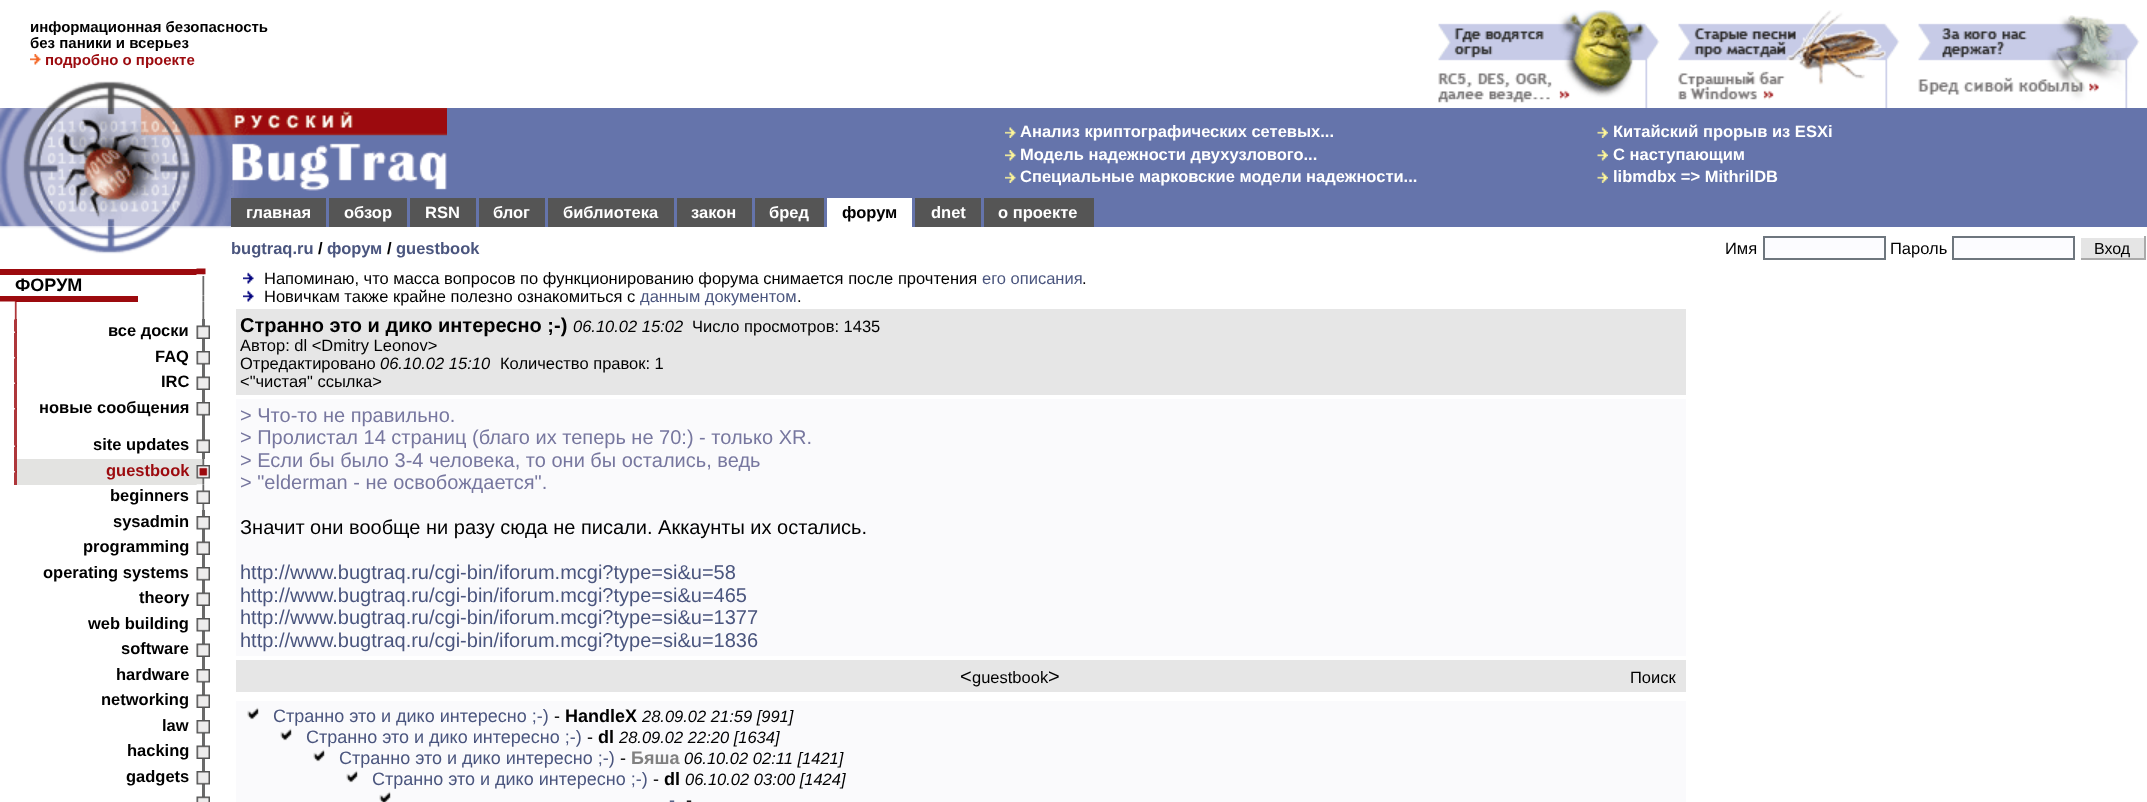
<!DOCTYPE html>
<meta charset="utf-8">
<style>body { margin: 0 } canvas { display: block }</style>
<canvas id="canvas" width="2147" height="802"></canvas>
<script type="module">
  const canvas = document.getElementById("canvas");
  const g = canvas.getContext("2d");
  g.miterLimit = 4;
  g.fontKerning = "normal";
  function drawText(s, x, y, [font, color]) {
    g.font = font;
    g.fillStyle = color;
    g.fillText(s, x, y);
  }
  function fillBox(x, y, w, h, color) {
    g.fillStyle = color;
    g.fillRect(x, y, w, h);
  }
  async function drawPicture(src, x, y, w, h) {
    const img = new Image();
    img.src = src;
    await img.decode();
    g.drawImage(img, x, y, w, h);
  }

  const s1 = ["bold 15px Liberation Sans", "#000000"];
  const s2 = ["bold 15px Liberation Sans", "#9C0A0E"];
  const s3 = ["bold 16.5px Liberation Sans", "#FFFFFF"];
  const s4 = ["bold 16.5px Liberation Sans", "#000000"];
  const s5 = ["bold 16.5px Liberation Sans", "#4A557E"];
  const s6 = ["16.5px Liberation Sans", "#000000"];
  const s7 = ["16px Liberation Sans", "#000000"];
  const s8 = ["bold 18px Liberation Sans", "#000000"];
  const s9 = ["bold 16.5px Liberation Sans", "#9C0A0E"];
  const s10 = ["16.5px Liberation Sans", "#4A557E"];
  const s11 = ["bold 20px Liberation Sans", "#000000"];
  const s12 = ["italic 16.5px Liberation Sans", "#000000"];
  const s13 = ["20px Liberation Sans", "#77779F"];
  const s14 = ["20px Liberation Sans", "#000000"];
  const s15 = ["20px Liberation Sans", "#4A557E"];
  const s16 = ["18px Liberation Sans", "#4A557E"];
  const s17 = ["18px Liberation Sans", "#000000"];
  const s18 = ["bold 18px Liberation Sans", "#808080"];

  fillBox(0, 0, 2147, 802, "#FFFFFF");
  drawText("информационная безопасность", 30, 32, s1);
  drawText("без паники и всерьез", 30, 48, s1);
  await drawPicture("pic1.png", 30, 54, 11, 11);
  drawText("подробно о проекте", 45, 65, s2);
  await drawPicture("pic2.png", 1438, 10, 222, 98);
  await drawPicture("pic3.png", 1678, 10, 222, 98);
  await drawPicture("pic4.png", 1918, 15, 222, 93);
  await drawPicture("pic5.png", 46, 81, 127, 27);
  fillBox(447, 108, 1700, 90, "#6574AB");
  await drawPicture("pic6.png", 0, 108, 231, 119);
  await drawPicture("pic7.png", 0, 226, 231, 28);
  await drawPicture("pic8.png", 231, 108, 216, 90);
  await drawPicture("pic9.png", 1005, 127, 11, 11);
  drawText("Анализ криптографических сетевых...", 1020, 137, s3);
  await drawPicture("pic10.png", 1005, 150, 11, 11);
  drawText("Модель надежности двухузлового...", 1020, 160, s3);
  await drawPicture("pic9.png", 1005, 172, 11, 11);
  drawText("Специальные марковские модели надежности...", 1020, 182, s3);
  await drawPicture("pic11.png", 1597, 127, 11, 11);
  drawText("Китайский прорыв из ESXi", 1613, 137, s3);
  await drawPicture("pic12.png", 1597, 150, 11, 11);
  drawText("С наступающим", 1613, 160, s3);
  await drawPicture("pic11.png", 1597, 172, 11, 11);
  drawText("libmdbx => MithrilDB", 1613, 182, s3);
  fillBox(326, 198, 1821, 29, "#6574AB");
  fillBox(231, 198, 95, 29, "#555555");
  drawText("главная", 246, 218, s3);
  fillBox(329, 198, 78, 29, "#555555");
  drawText("обзор", 344, 218, s3);
  fillBox(410, 198, 66, 29, "#555555");
  drawText("RSN", 425, 218, s3);
  fillBox(479, 198, 66, 29, "#555555");
  drawText("блог", 493, 218, s3);
  fillBox(548, 198, 126, 29, "#555555");
  drawText("библиотека", 563, 218, s3);
  fillBox(677, 198, 75, 29, "#555555");
  drawText("закон", 691, 218, s3);
  fillBox(755, 198, 69, 29, "#555555");
  drawText("бред", 769, 218, s3);
  fillBox(827, 198, 85, 29, "#FFFFFF");
  drawText("форум", 842, 218, s4);
  fillBox(915, 198, 66, 29, "#555555");
  drawText("dnet", 931, 218, s3);
  fillBox(984, 198, 110, 29, "#555555");
  drawText("о проекте", 998, 218, s3);
  drawText("bugtraq.ru", 231, 254, s5);
  drawText("/", 318, 254, s4);
  drawText("форум", 327, 254, s5);
  drawText("/", 387, 254, s4);
  drawText("guestbook", 396, 254, s5);
  drawText("Имя", 1725, 254, s6);
  g.fillStyle = "#FCFCFF";
  g.beginPath();
  g.rect(1764, 237, 121, 22);
  g.fill();
  g.strokeStyle = "#6E767E";
  g.lineWidth = 2;
  g.stroke();
  drawText("Пароль", 1890, 254, s6);
  g.fillStyle = "#FCFCFF";
  g.beginPath();
  g.rect(1953, 237, 121, 22);
  g.fill();
  g.stroke();
  fillBox(2081, 238, 63, 20, "#E5E5E5");
  fillBox(2144, 236, 2, 24, "#AAAAAA");
  fillBox(2079, 258, 66, 2, "#AAAAAA");
  fillBox(2079, 258, 2, 2, "#FFFFFF");
  drawText("Вход", 2094, 254, s7);
  fillBox(0, 269, 197, 6, "#9C0A0E");
  await drawPicture("pic14.png", 196, 274, 14, 22);
  await drawPicture("pic13.png", 196, 268, 14, 7);
  drawText("ФОРУМ", 15, 291, s8);
  await drawPicture("pic15.png", 196, 274, 14, 2);
  fillBox(0, 296, 138, 6, "#9C0A0E");
  await drawPicture("pic16.png", 196, 295, 9, 7);
  fillBox(14, 319, 3, 103, "#AE373B");
  await drawPicture("pic17.png", 0, 301, 17, 19);
  await drawPicture("pic18.png", 196, 301, 9, 19);
  await drawPicture("pic19.png", 14, 331, 3, 2);
  drawText("все доски", 108, 336, s4);
  fillBox(202, 319, 3, 140, "#6A6A6A");
  await drawPicture("pic20.png", 196, 325, 14, 14);
  await drawPicture("pic21.png", 14, 357, 3, 2);
  drawText("FAQ", 155, 362, s4);
  await drawPicture("pic22.png", 196, 351, 14, 14);
  await drawPicture("pic19.png", 14, 382, 3, 2);
  drawText("IRC", 161, 387, s4);
  await drawPicture("pic20.png", 196, 376, 14, 14);
  await drawPicture("pic21.png", 14, 408, 3, 2);
  drawText("новые сообщения", 39, 413, s4);
  await drawPicture("pic22.png", 196, 402, 14, 14);
  fillBox(14, 421, 3, 64, "#AE373B");
  await drawPicture("pic19.png", 14, 445, 3, 2);
  drawText("site updates", 93, 450, s4);
  await drawPicture("pic20.png", 196, 439, 14, 14);
  await drawPicture("pic21.png", 14, 471, 3, 2);
  fillBox(17, 459, 180, 26, "#E3E3E1");
  drawText("guestbook", 106, 476, s9);
  await drawPicture("pic23.png", 197, 459, 8, 26);
  await drawPicture("pic24.png", 196, 465, 14, 14);
  drawText("beginners", 110, 501, s4);
  await drawPicture("pic25.png", 196, 484, 9, 26);
  await drawPicture("pic26.png", 196, 490, 14, 14);
  drawText("sysadmin", 113, 527, s4);
  fillBox(202, 510, 3, 292, "#6A6A6A");
  await drawPicture("pic22.png", 196, 516, 14, 14);
  drawText("programming", 83, 552, s4);
  await drawPicture("pic20.png", 196, 541, 14, 14);
  drawText("operating systems", 43, 578, s4);
  await drawPicture("pic22.png", 196, 567, 14, 14);
  drawText("theory", 139, 603, s4);
  await drawPicture("pic20.png", 196, 592, 14, 14);
  drawText("web building", 88, 629, s4);
  await drawPicture("pic22.png", 196, 618, 14, 14);
  drawText("software", 121, 654, s4);
  await drawPicture("pic20.png", 196, 643, 14, 14);
  drawText("hardware", 116, 680, s4);
  await drawPicture("pic22.png", 196, 669, 14, 14);
  drawText("networking", 101, 705, s4);
  await drawPicture("pic20.png", 196, 694, 14, 14);
  drawText("law", 162, 731, s4);
  await drawPicture("pic22.png", 196, 720, 14, 14);
  drawText("hacking", 127, 756, s4);
  await drawPicture("pic20.png", 196, 745, 14, 14);
  drawText("gadgets", 126, 782, s4);
  await drawPicture("pic22.png", 196, 771, 14, 14);
  await drawPicture("pic27.png", 196, 796, 14, 6);
  await drawPicture("pic28.png", 243, 272, 11, 12);
  drawText("Напоминаю, что масса вопросов по функционированию форума снимается после прочтения", 264, 284, s6);
  drawText("его описания", 982, 284, s10);
  drawText(".", 1082, 284, s6);
  await drawPicture("pic28.png", 243, 290, 11, 12);
  drawText("Новичкам также крайне полезно ознакомиться с", 264, 302, s6);
  drawText("данным документом", 640, 302, s10);
  drawText(".", 797, 302, s6);
  fillBox(236, 309, 1450, 86, "#E6E6E6");
  drawText("Странно это и дико интересно ;-)", 240, 332, s11);
  drawText("06.10.02 15:02", 573, 332, s12);
  drawText("Число просмотров: 1435", 692, 332, s6);
  drawText("Автор: dl <Dmitry Leonov>", 240, 351, s6);
  drawText("Отредактировано", 240, 369, s6);
  drawText("06.10.02 15:10", 380, 369, s12);
  drawText("Количество правок: 1", 500, 369, s6);
  drawText("<\"чистая\" ссылка>", 240, 387, s6);
  fillBox(236, 399, 1450, 257, "#FAFAFC");
  drawText("> Что-то не правильно.", 240, 422, s13);
  drawText("> Пролистал 14 страниц (благо их теперь не 70:) - только XR.", 240, 444, s13);
  drawText("> Если бы было 3-4 человека, то они бы остались, ведь", 240, 467, s13);
  drawText("> \"elderman - не освобождается\".", 240, 489, s13);
  drawText("Значит они вообще ни разу сюда не писали. Аккаунты их остались.", 240, 534, s14);
  drawText("http://www.bugtraq.ru/cgi-bin/iforum.mcgi?type=si&u=58", 240, 579, s15);
  drawText("http://www.bugtraq.ru/cgi-bin/iforum.mcgi?type=si&u=465", 240, 602, s15);
  drawText("http://www.bugtraq.ru/cgi-bin/iforum.mcgi?type=si&u=1377", 240, 624, s15);
  drawText("http://www.bugtraq.ru/cgi-bin/iforum.mcgi?type=si&u=1836", 240, 647, s15);
  fillBox(236, 660, 1450, 32, "#E6E6E6");
  drawText("<", 960, 683, s14);
  drawText("guestbook", 972, 683, s6);
  drawText(">", 1048, 683, s14);
  drawText("Поиск", 1630, 683, s6);
  fillBox(236, 701, 1450, 101, "#FAFAFC");
  await drawPicture("pic29.png", 247, 707, 12, 13);
  drawText("Странно это и дико интересно ;-)", 273, 722, s16);
  drawText("-", 554, 722, s17);
  drawText("HandleX", 565, 722, s8);
  drawText("28.09.02 21:59 [991]", 642, 722, s12);
  await drawPicture("pic30.png", 280, 728, 12, 13);
  drawText("Странно это и дико интересно ;-)", 306, 743, s16);
  drawText("-", 587, 743, s17);
  drawText("dl", 598, 743, s8);
  drawText("28.09.02 22:20 [1634]", 619, 743, s12);
  await drawPicture("pic30.png", 313, 749, 12, 13);
  drawText("Странно это и дико интересно ;-)", 339, 764, s16);
  drawText("-", 620, 764, s17);
  drawText("Бяша", 631, 764, s18);
  drawText("06.10.02 02:11 [1421]", 684, 764, s12);
  await drawPicture("pic30.png", 346, 770, 12, 13);
  drawText("Странно это и дико интересно ;-)", 372, 785, s16);
  drawText("-", 653, 785, s17);
  drawText("dl", 664, 785, s8);
  drawText("06.10.02 03:00 [1424]", 685, 785, s12);
  await drawPicture("pic31.png", 379, 791, 12, 11);
  drawText("-", 669, 806, s16);
  drawText("-", 686, 806, s17);
</script>
